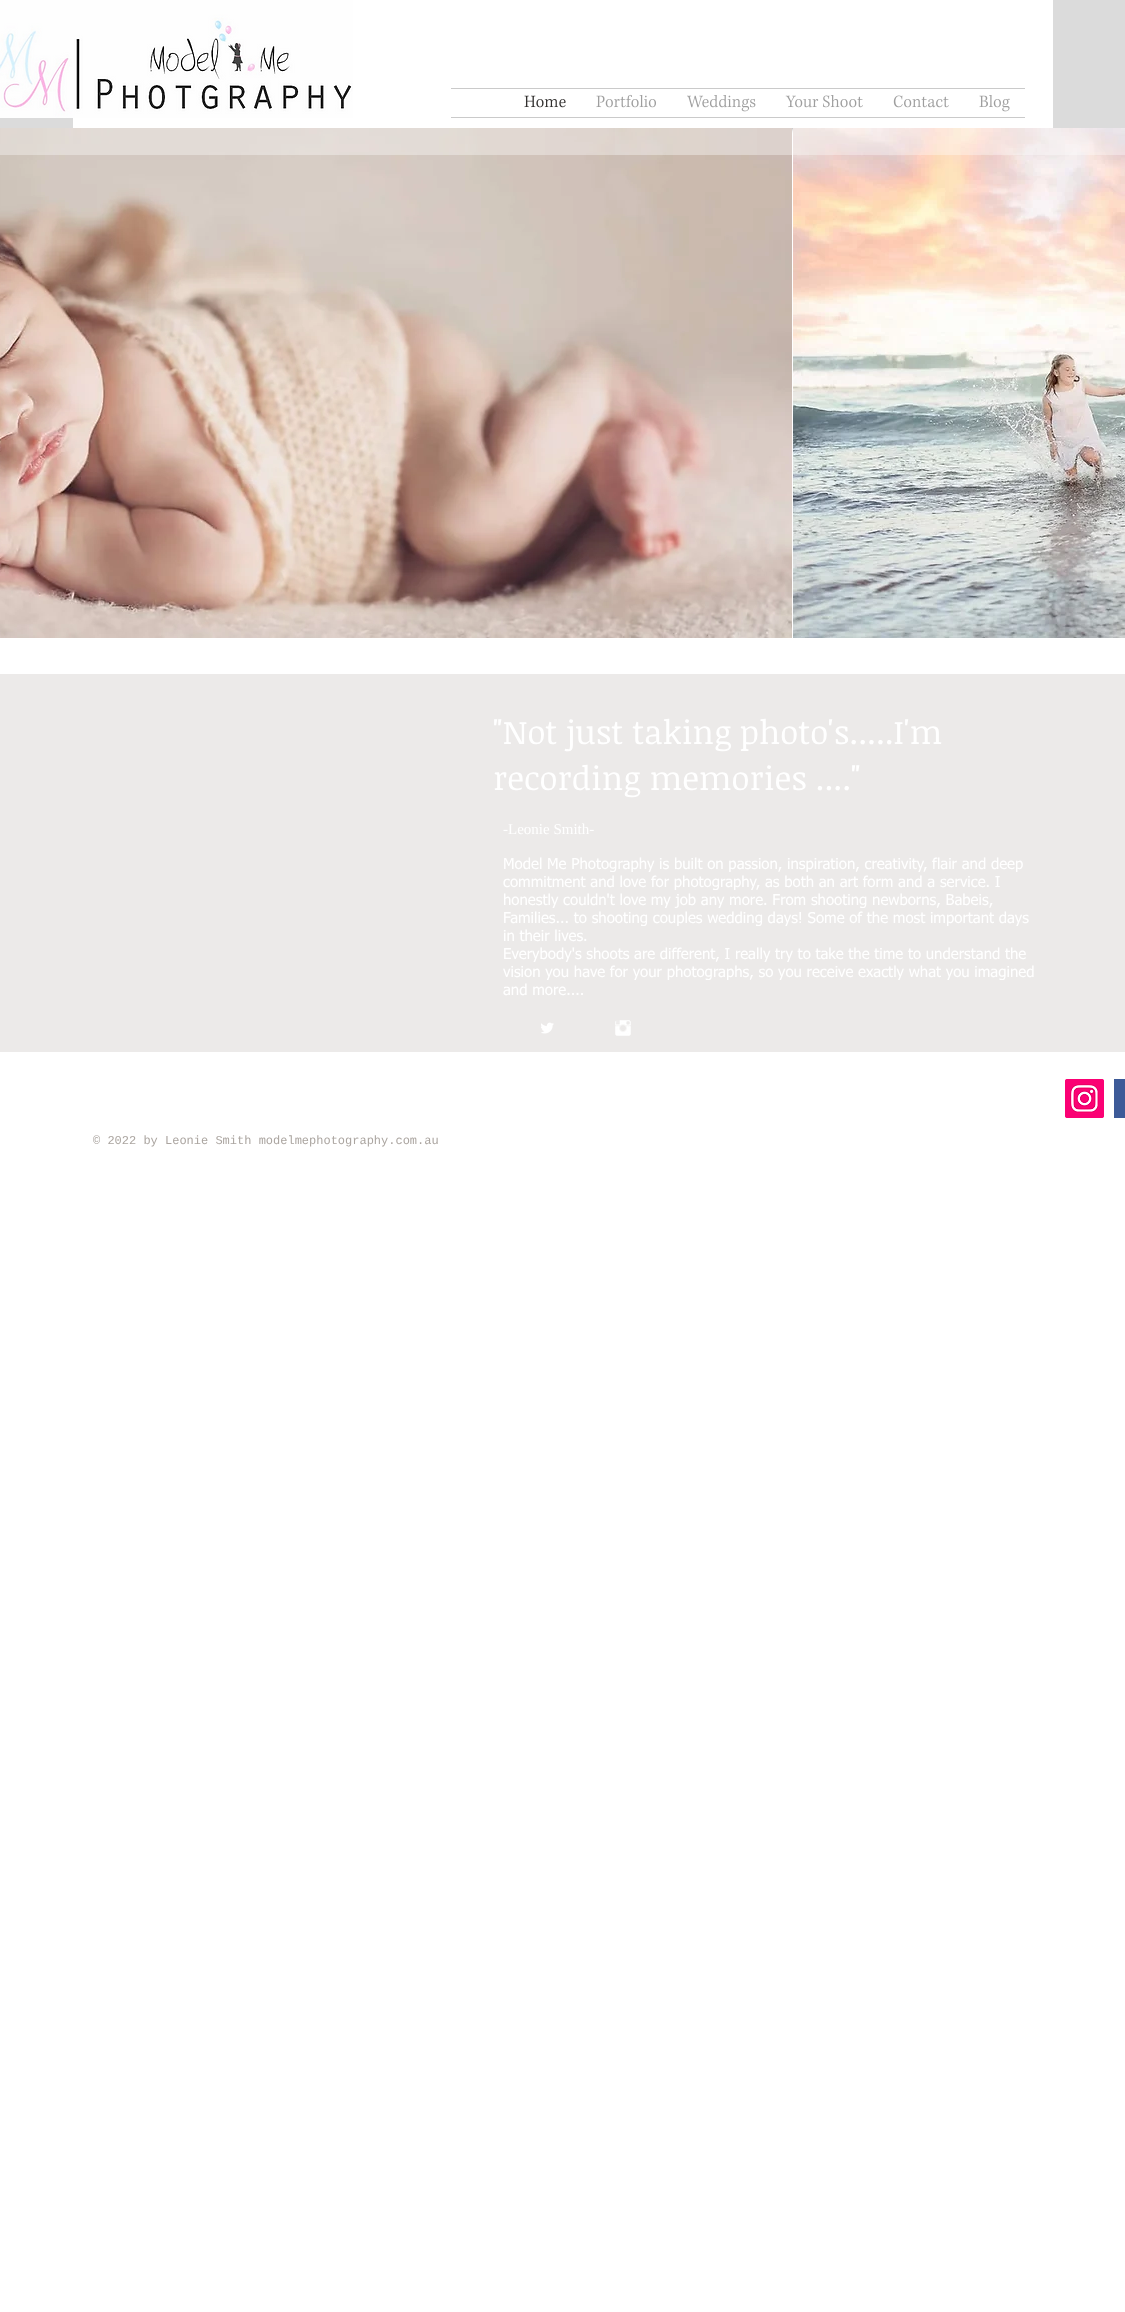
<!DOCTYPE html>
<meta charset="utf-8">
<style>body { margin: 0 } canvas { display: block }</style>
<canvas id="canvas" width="1125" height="2312"></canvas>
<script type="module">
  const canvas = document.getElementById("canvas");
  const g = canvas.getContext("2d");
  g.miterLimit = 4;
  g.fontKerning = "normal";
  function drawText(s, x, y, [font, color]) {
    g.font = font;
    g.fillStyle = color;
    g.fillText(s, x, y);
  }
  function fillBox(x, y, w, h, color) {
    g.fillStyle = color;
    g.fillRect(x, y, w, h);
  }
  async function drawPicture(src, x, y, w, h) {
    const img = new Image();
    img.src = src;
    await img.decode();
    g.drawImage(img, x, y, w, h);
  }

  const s1 = ["33px Noticia Text", "#FFFFFF"];
  const s2 = ["15px Liberation Serif", "#FFFFFF"];
  const s3 = ["15px tahoma", "#FFFFFF"];
  const s4 = ["12px Liberation Mono", "#ABA5A0"];

  fillBox(0, 0, 1125, 2312, "#FFFFFF");
  g.fillStyle = "rgba(0, 0, 0, 0.7)";
  g.filter = "blur(2.5px)";
  g.beginPath();
  g.rect(0, 0, 1125, 128);
  g.fill();
  g.filter = "none";
  fillBox(0, 0, 1125, 128, "#DBDBDB");
  fillBox(73, 0, 980, 128, "#FFFFFF");
  await drawPicture("pic1.png", 0, 0, 353, 118);
  fillBox(451, 88, 574, 1, "#CACACA");
  fillBox(451, 117, 574, 1, "#CACACA");
  await drawPicture("pic2.png", 524, 95, 42, 13);
  await drawPicture("pic3.png", 596, 94, 60, 14);
  await drawPicture("pic4.png", 687, 95, 69, 17);
  await drawPicture("pic5.png", 785, 95, 78, 13);
  await drawPicture("pic6.png", 893, 95, 56, 13);
  await drawPicture("pic7.png", 979, 95, 31, 17);
  await drawPicture("pic8.png", 0, 128, 792, 510);
  await drawPicture("pic9.png", 793, 128, 332, 510);
  fillBox(0, 128, 1125, 27, "rgba(255, 255, 255, 0.35)");
  fillBox(615, 128, 142, 27, "rgba(255, 255, 255, 0.05)");
  fillBox(0, 674, 1125, 378, "#ECEAE9");
  drawText("\"Not just taking photo's.....I'm", 493, 744, s1);
  drawText("recording memories ....\"", 493, 790, s1);
  drawText("-Leonie Smith-", 503, 834, s2);
  drawText("Model Me Photography is built on passion, inspiration, creativity, flair and deep", 503, 869, s3);
  drawText("commitment and love for photography, as both an art form and a service. I", 503, 887, s3);
  drawText("honestly couldn't love my job any more. From shooting newborns, Babeis,", 503, 905, s3);
  drawText("Families... to shooting couples wedding days! Some of the most important days", 503, 923, s3);
  drawText("in their lives.", 503, 941, s3);
  drawText("Everybody's shoots are different, I really try to take the time to understand the", 503, 959, s3);
  drawText("vision you have for your photographs, so you receive exactly what you imagined", 503, 977, s3);
  drawText("and more....", 503, 995, s3);
  await drawPicture("pic10.png", 541, 1022, 13, 12);
  await drawPicture("pic11.png", 615, 1020, 16, 16);
  await drawPicture("pic12.png", 1065, 1079, 39, 39);
  fillBox(1114, 1079, 11, 39, "#3D5A98");
  drawText("© 2022 by Leonie Smith modelmephotography.com.au", 93, 1144, s4);
</script>
